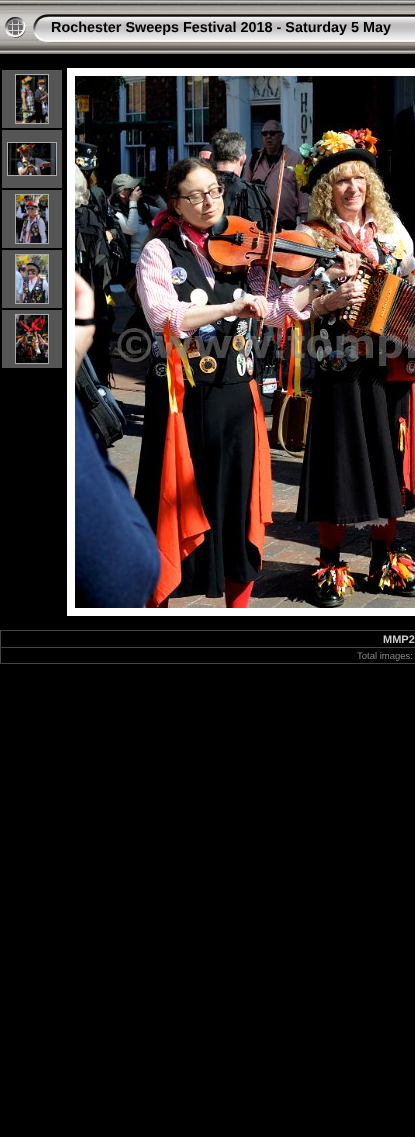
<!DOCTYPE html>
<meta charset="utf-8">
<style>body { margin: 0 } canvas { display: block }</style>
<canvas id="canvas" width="415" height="1137"></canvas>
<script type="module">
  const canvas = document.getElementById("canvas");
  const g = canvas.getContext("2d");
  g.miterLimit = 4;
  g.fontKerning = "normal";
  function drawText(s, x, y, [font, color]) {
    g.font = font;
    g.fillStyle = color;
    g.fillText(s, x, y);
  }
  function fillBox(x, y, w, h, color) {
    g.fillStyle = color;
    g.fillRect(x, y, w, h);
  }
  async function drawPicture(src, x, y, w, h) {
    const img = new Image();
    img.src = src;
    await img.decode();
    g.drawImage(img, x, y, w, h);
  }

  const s1 = ["bold 14.4px Liberation Sans", "#000000"];
  const s2 = ["bold 11px Liberation Sans", "#CCCCCC"];
  const s3 = ["9.5px Liberation Sans", "#888888"];

  fillBox(0, 0, 415, 1137, "#000000");
  await drawPicture("pic1.png", 0, 0, 415, 54);
  await drawPicture("pic2.png", 4, 17, 22, 21);
  await drawPicture("pic3.png", 33, 14, 18, 29);
  await drawPicture("pic4.png", 51, 14, 364, 29);
  drawText("Rochester Sweeps Festival 2018 - Saturday 5 May", 51, 32, s1);
  fillBox(2, 70, 60, 58, "#555555");
  g.strokeStyle = "#AAAAAA";
  g.strokeRect(15.5, 74.5, 33, 49);
  await drawPicture("pic5.png", 16, 75, 32, 48);
  fillBox(2, 130, 60, 58, "#555555");
  g.strokeRect(7.5, 142.5, 49, 33);
  await drawPicture("pic6.png", 8, 143, 48, 32);
  fillBox(2, 190, 60, 58, "#555555");
  g.strokeRect(15.5, 194.5, 33, 49);
  await drawPicture("pic7.png", 16, 195, 32, 48);
  fillBox(2, 250, 60, 58, "#555555");
  g.strokeRect(15.5, 254.5, 33, 49);
  await drawPicture("pic8.png", 16, 255, 32, 48);
  fillBox(2, 310, 60, 58, "#555555");
  g.strokeRect(15.5, 314.5, 33, 49);
  await drawPicture("pic9.png", 16, 315, 32, 48);
  g.strokeStyle = "#FFFFFF";
  g.lineWidth = 8;
  g.strokeRect(71, 72, 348, 540);
  await drawPicture("pic10.png", 75, 76, 340, 532);
  fillBox(0, 630, 415, 1, "#444444");
  fillBox(0, 663, 415, 1, "#444444");
  fillBox(0, 630, 1, 34, "#444444");
  drawText("MMP2", 383, 643, s2);
  fillBox(0, 647, 415, 1, "#444444");
  drawText("Total images:", 357, 659, s3);
</script>
